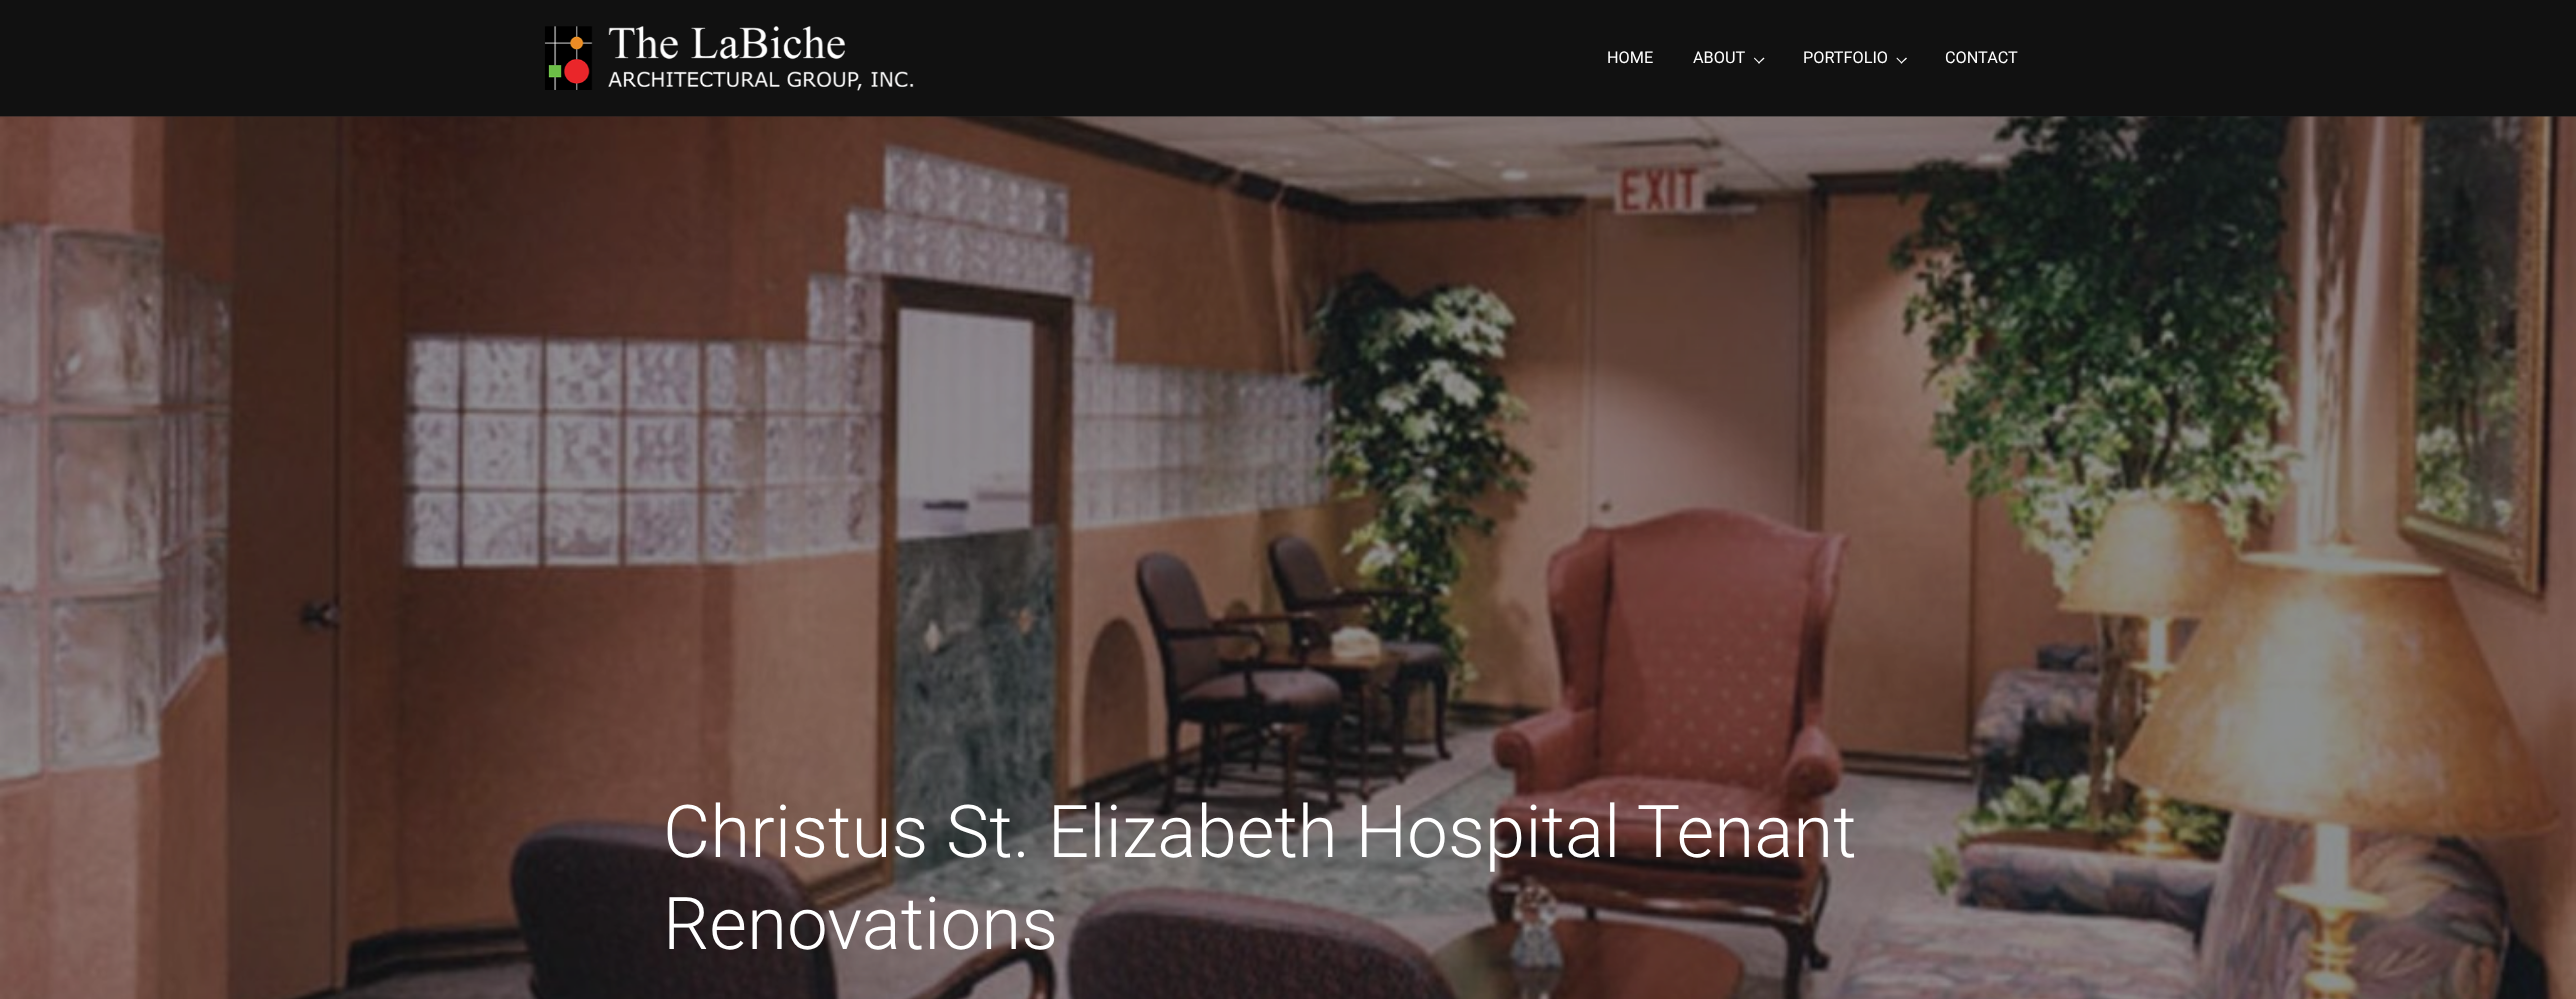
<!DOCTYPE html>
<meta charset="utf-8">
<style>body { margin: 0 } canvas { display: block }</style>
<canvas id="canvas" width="2576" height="999"></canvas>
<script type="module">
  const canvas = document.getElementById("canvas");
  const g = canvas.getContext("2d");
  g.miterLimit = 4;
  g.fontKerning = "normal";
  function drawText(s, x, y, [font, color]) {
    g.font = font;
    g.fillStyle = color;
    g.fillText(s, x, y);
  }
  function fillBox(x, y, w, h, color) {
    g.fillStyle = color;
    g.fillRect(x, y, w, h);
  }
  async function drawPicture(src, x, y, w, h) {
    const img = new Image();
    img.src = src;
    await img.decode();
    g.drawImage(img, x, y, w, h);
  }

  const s1 = ["16.25px Roboto", "#FFFFFF"];
  const s2 = ["300 72.8px Roboto", "#FFFFFF"];

  fillBox(0, 0, 2576, 999, "#1B1E20");
  fillBox(0, 0, 2576, 116, "#111111");
  await drawPicture("pic1.png", 544, 26, 370, 65);
  drawText("HOME", 1607, 63, s1);
  drawText("ABOUT", 1693, 63, s1);
  g.beginPath();
  g.moveTo(1763.5, 57.5);
  g.lineTo(1764.5, 58.5);
  g.lineTo(1759, 63.5);
  g.lineTo(1758, 63);
  g.closePath();
  g.fill();
  g.beginPath();
  g.moveTo(1754.5, 57.5);
  g.lineTo(1760, 63);
  g.lineTo(1759, 63.5);
  g.lineTo(1754, 58.5);
  g.closePath();
  g.fill();
  drawText("PORTFOLIO", 1803, 63, s1);
  g.beginPath();
  g.moveTo(1906, 57.5);
  g.lineTo(1907, 58.5);
  g.lineTo(1901.5, 63.5);
  g.lineTo(1900.5, 63);
  g.closePath();
  g.fill();
  g.beginPath();
  g.moveTo(1897, 57.5);
  g.lineTo(1902.5, 63);
  g.lineTo(1901.5, 63.5);
  g.lineTo(1896.5, 58.5);
  g.closePath();
  g.fill();
  drawText("CONTACT", 1945, 63, s1);
  await drawPicture("pic2.png", 0, 116, 2576, 883);
  drawText("Christus St. Elizabeth Hospital Tenant", 663, 857, s2);
  drawText("Renovations", 663, 949, s2);
</script>
